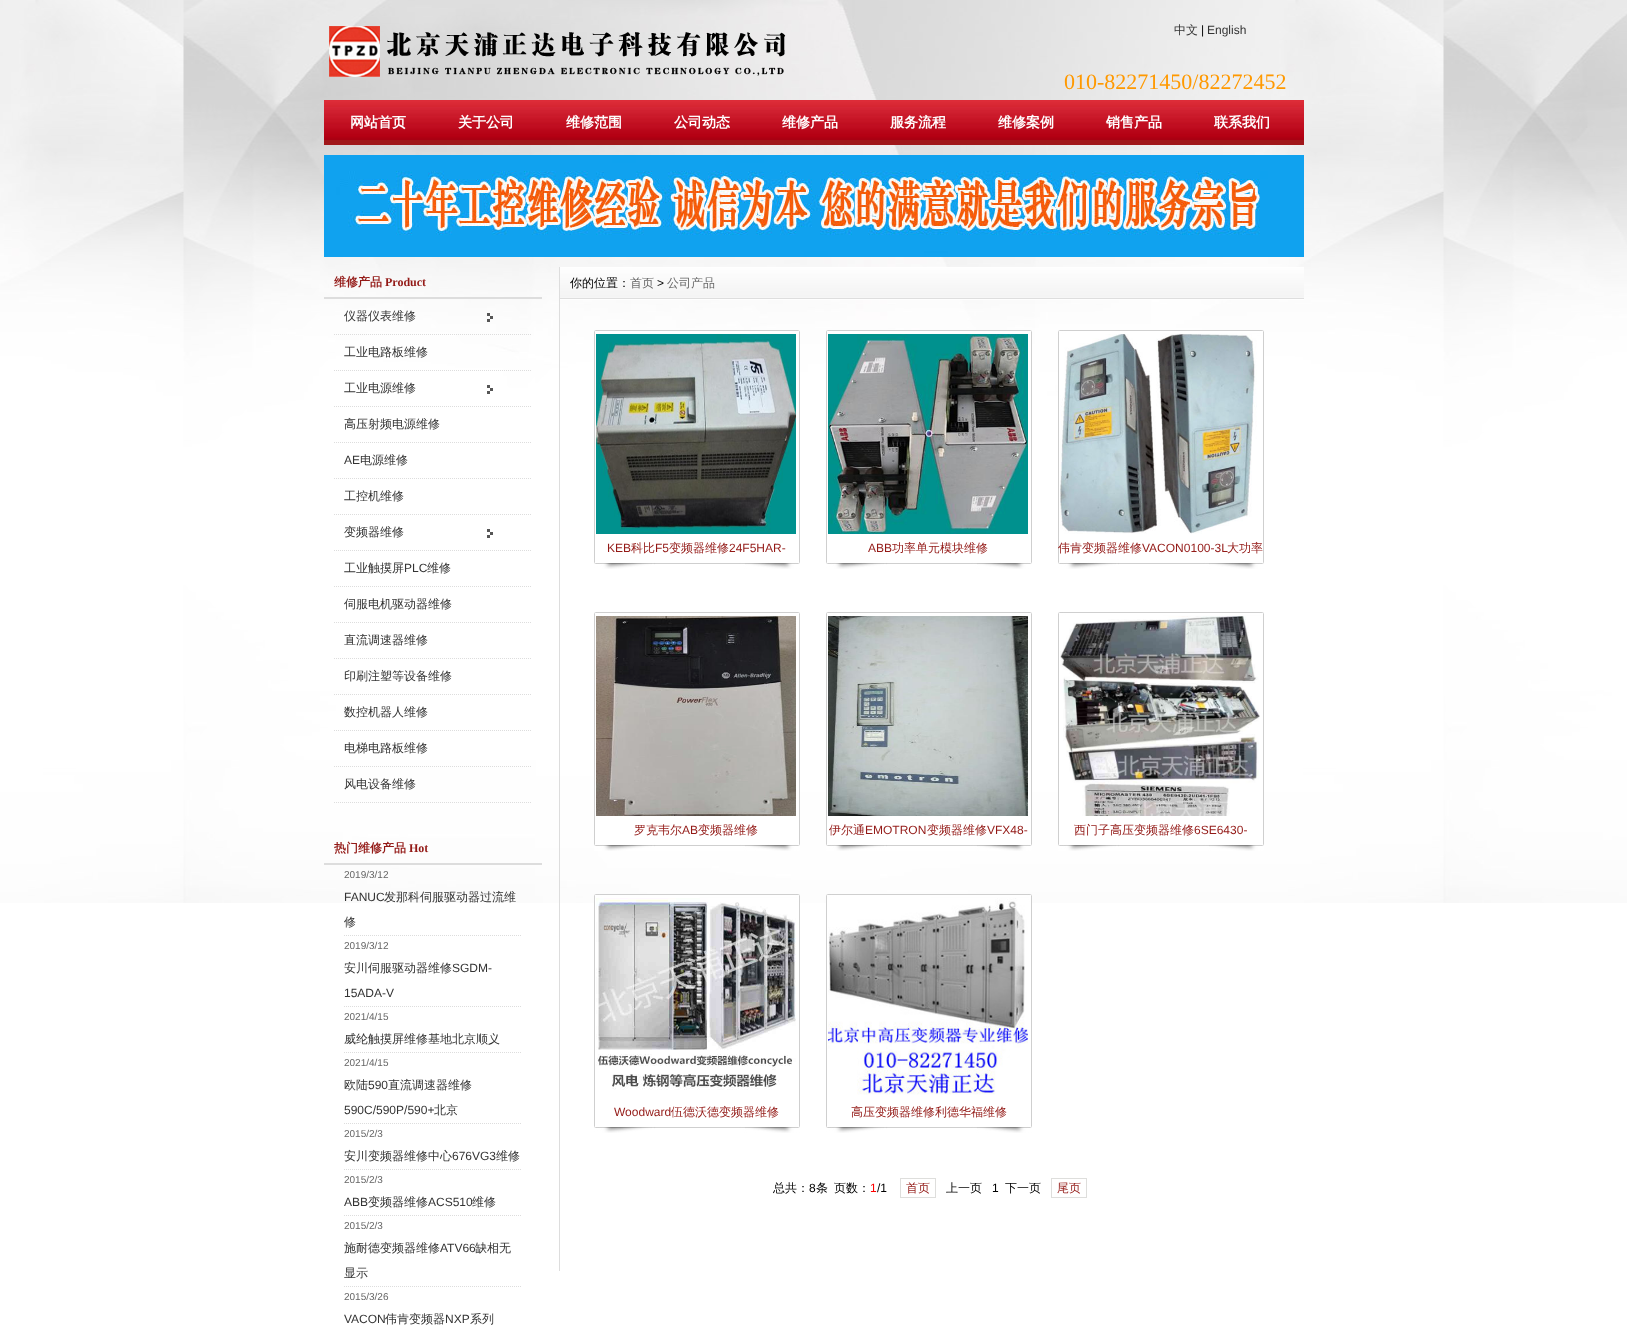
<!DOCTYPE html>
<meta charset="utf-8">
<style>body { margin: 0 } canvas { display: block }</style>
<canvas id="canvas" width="1627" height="1330"></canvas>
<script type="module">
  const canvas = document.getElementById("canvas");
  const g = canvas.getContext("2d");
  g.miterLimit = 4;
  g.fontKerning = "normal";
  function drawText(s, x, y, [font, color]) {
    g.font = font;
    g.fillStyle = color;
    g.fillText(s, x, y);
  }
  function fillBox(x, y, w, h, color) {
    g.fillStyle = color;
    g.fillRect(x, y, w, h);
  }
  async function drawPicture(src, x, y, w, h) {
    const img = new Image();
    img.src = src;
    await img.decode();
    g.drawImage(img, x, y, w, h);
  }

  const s1 = ["500 12px WenQuanYi Zen Hei", "#333333"];
  const s2 = ["12px Liberation Sans", "#000000"];
  const s3 = ["12px Liberation Sans", "#333333"];
  const s4 = ["22px Liberation Serif", "#FF9900"];
  const s5 = ["bold 14px WenQuanYi Zen Hei", "#FFFFFF"];
  const s6 = ["bold 12px WenQuanYi Zen Hei", "#931916"];
  const s7 = ["bold 12px Liberation Serif", "#931916"];
  const s8 = ["10px Liberation Sans", "#666666"];
  const s9 = ["500 12px WenQuanYi Zen Hei", "#000000"];
  const s10 = ["500 12px WenQuanYi Zen Hei", "#666666"];
  const s11 = ["12px Liberation Sans", "#931916"];
  const s12 = ["500 12px WenQuanYi Zen Hei", "#931916"];
  const s13 = ["12px Liberation Sans", "#FF0000"];

  fillBox(0, 0, 1627, 1330, "#FFFFFF");
  await drawPicture("pic1.png", 0, 0, 1627, 903);
  await drawPicture("pic2.png", 329, 26, 457, 51);
  drawText("中文", 1174, 34, s1);
  drawText("|", 1201, 34, s2);
  drawText("English", 1207, 34, s3);
  drawText("010-82271450/82272452", 1064, 89, s4);
  fillBox(324, 140, 980, 5, "#A0171A");
  await drawPicture("pic3.png", 324, 100, 980, 40);
  drawText("网站首页", 350, 127, s5);
  drawText("关于公司", 458, 127, s5);
  drawText("维修范围", 566, 127, s5);
  drawText("公司动态", 674, 127, s5);
  drawText("维修产品", 782, 127, s5);
  drawText("服务流程", 890, 127, s5);
  drawText("维修案例", 998, 127, s5);
  drawText("销售产品", 1106, 127, s5);
  drawText("联系我们", 1214, 127, s5);
  await drawPicture("pic4.png", 324, 155, 980, 102);
  fillBox(324, 297, 218, 2, "#DDDDDD");
  drawText("维修产品", 334, 286, s6);
  drawText("Product", 385, 286, s7);
  await drawPicture("pic5.png", 487, 313, 6, 9);
  g.beginPath();
  g.moveTo(334, 334.5);
  g.lineTo(532, 334.5);
  g.strokeStyle = "#DDDDDD";
  g.setLineDash([1, 1]);
  g.stroke();
  drawText("仪器仪表维修", 344, 320, s1);
  g.beginPath();
  g.moveTo(334, 370.5);
  g.lineTo(532, 370.5);
  g.stroke();
  drawText("工业电路板维修", 344, 356, s1);
  await drawPicture("pic6.png", 487, 385, 6, 9);
  g.beginPath();
  g.moveTo(334, 406.5);
  g.lineTo(532, 406.5);
  g.stroke();
  drawText("工业电源维修", 344, 392, s1);
  g.beginPath();
  g.moveTo(334, 442.5);
  g.lineTo(532, 442.5);
  g.stroke();
  drawText("高压射频电源维修", 344, 428, s1);
  g.beginPath();
  g.moveTo(334, 478.5);
  g.lineTo(532, 478.5);
  g.stroke();
  drawText("AE", 344, 464, s3);
  drawText("电源维修", 360, 464, s1);
  g.beginPath();
  g.moveTo(334, 514.5);
  g.lineTo(532, 514.5);
  g.stroke();
  drawText("工控机维修", 344, 500, s1);
  await drawPicture("pic6.png", 487, 529, 6, 9);
  g.beginPath();
  g.moveTo(334, 550.5);
  g.lineTo(532, 550.5);
  g.stroke();
  drawText("变频器维修", 344, 536, s1);
  g.beginPath();
  g.moveTo(334, 586.5);
  g.lineTo(532, 586.5);
  g.stroke();
  drawText("工业触摸屏", 344, 572, s1);
  drawText("PLC", 404, 572, s3);
  drawText("维修", 427, 572, s1);
  g.beginPath();
  g.moveTo(334, 622.5);
  g.lineTo(532, 622.5);
  g.stroke();
  drawText("伺服电机驱动器维修", 344, 608, s1);
  g.beginPath();
  g.moveTo(334, 658.5);
  g.lineTo(532, 658.5);
  g.stroke();
  drawText("直流调速器维修", 344, 644, s1);
  g.beginPath();
  g.moveTo(334, 694.5);
  g.lineTo(532, 694.5);
  g.stroke();
  drawText("印刷注塑等设备维修", 344, 680, s1);
  g.beginPath();
  g.moveTo(334, 730.5);
  g.lineTo(532, 730.5);
  g.stroke();
  drawText("数控机器人维修", 344, 716, s1);
  g.beginPath();
  g.moveTo(334, 766.5);
  g.lineTo(532, 766.5);
  g.stroke();
  drawText("电梯电路板维修", 344, 752, s1);
  g.beginPath();
  g.moveTo(334, 802.5);
  g.lineTo(532, 802.5);
  g.stroke();
  drawText("风电设备维修", 344, 788, s1);
  fillBox(324, 863, 218, 2, "#DDDDDD");
  drawText("热门维修产品", 334, 852, s6);
  drawText("Hot", 409, 852, s7);
  drawText("2019/3/12", 344, 878, s8);
  g.beginPath();
  g.moveTo(344, 935.5);
  g.lineTo(522, 935.5);
  g.stroke();
  drawText("FANUC", 344, 901, s3);
  drawText("发那科伺服驱动器过流维", 384, 901, s1);
  drawText("修", 344, 926, s1);
  drawText("2019/3/12", 344, 949, s8);
  g.beginPath();
  g.moveTo(344, 1006.5);
  g.lineTo(522, 1006.5);
  g.stroke();
  drawText("安川伺服驱动器维修", 344, 972, s1);
  drawText("SGDM-", 452, 972, s3);
  drawText("15ADA-V", 344, 997, s3);
  drawText("2021/4/15", 344, 1020, s8);
  g.beginPath();
  g.moveTo(344, 1052.5);
  g.lineTo(522, 1052.5);
  g.stroke();
  drawText("威纶触摸屏维修基地北京顺义", 344, 1043, s1);
  drawText("2021/4/15", 344, 1066, s8);
  g.beginPath();
  g.moveTo(344, 1123.5);
  g.lineTo(522, 1123.5);
  g.stroke();
  drawText("欧陆", 344, 1089, s1);
  drawText("590", 368, 1089, s3);
  drawText("直流调速器维修", 388, 1089, s1);
  drawText("590C/590P/590+", 344, 1114, s3);
  drawText("北京", 434, 1114, s1);
  drawText("2015/2/3", 344, 1137, s8);
  g.beginPath();
  g.moveTo(344, 1169.5);
  g.lineTo(522, 1169.5);
  g.stroke();
  drawText("安川变频器维修中心", 344, 1160, s1);
  drawText("676VG3", 452, 1160, s3);
  drawText("维修", 496, 1160, s1);
  drawText("2015/2/3", 344, 1183, s8);
  g.beginPath();
  g.moveTo(344, 1215.5);
  g.lineTo(522, 1215.5);
  g.stroke();
  drawText("ABB", 344, 1206, s3);
  drawText("变频器维修", 368, 1206, s1);
  drawText("ACS510", 428, 1206, s3);
  drawText("维修", 472, 1206, s1);
  drawText("2015/2/3", 344, 1229, s8);
  g.beginPath();
  g.moveTo(344, 1286.5);
  g.lineTo(522, 1286.5);
  g.stroke();
  drawText("施耐德变频器维修", 344, 1252, s1);
  drawText("ATV66", 440, 1252, s3);
  drawText("缺相无", 475, 1252, s1);
  drawText("显示", 344, 1277, s1);
  drawText("2015/3/26", 344, 1300, s8);
  drawText("VACON", 344, 1323, s3);
  drawText("伟肯变频器", 385, 1323, s1);
  drawText("NXP", 445, 1323, s3);
  drawText("系列", 470, 1323, s1);
  fillBox(559, 267, 1, 1004, "#DDDDDD");
  await drawPicture("pic7.png", 560, 267, 744, 33);
  drawText("你的位置：", 570, 287, s9);
  drawText("首页", 630, 287, s10);
  drawText(">", 657, 287, s2);
  drawText("公司产品", 667, 287, s10);
  await drawPicture("pic8.png", 594, 330, 206, 239);
  await drawPicture("pic9.png", 596, 334, 200, 200);
  drawText("KEB", 607, 552, s11);
  drawText("科比", 631, 552, s12);
  drawText("F5", 655, 552, s11);
  drawText("变频器维修", 669, 552, s12);
  drawText("24F5HAR-", 729, 552, s11);
  await drawPicture("pic8.png", 826, 330, 206, 239);
  await drawPicture("pic10.png", 828, 334, 200, 200);
  drawText("ABB", 868, 552, s11);
  drawText("功率单元模块维修", 892, 552, s12);
  await drawPicture("pic8.png", 1058, 330, 206, 239);
  await drawPicture("pic11.png", 1060, 334, 197, 200);
  drawText("伟肯变频器维修", 1058, 552, s12);
  drawText("VACON0100-3L", 1142, 552, s11);
  drawText("大功率", 1227, 552, s12);
  await drawPicture("pic8.png", 594, 612, 206, 239);
  await drawPicture("pic12.png", 596, 616, 200, 200);
  drawText("罗克韦尔", 634, 834, s12);
  drawText("AB", 682, 834, s11);
  drawText("变频器维修", 698, 834, s12);
  await drawPicture("pic8.png", 826, 612, 206, 239);
  await drawPicture("pic13.png", 828, 616, 200, 200);
  drawText("伊尔通", 829, 834, s12);
  drawText("EMOTRON", 865, 834, s11);
  drawText("变频器维修", 927, 834, s12);
  drawText("VFX48-", 987, 834, s11);
  await drawPicture("pic8.png", 1058, 612, 206, 239);
  await drawPicture("pic14.png", 1060, 616, 200, 200);
  drawText("西门子高压变频器维修", 1074, 834, s12);
  drawText("6SE6430-", 1194, 834, s11);
  await drawPicture("pic8.png", 594, 894, 206, 239);
  await drawPicture("pic15.png", 596, 898, 200, 192);
  drawText("Woodward", 614, 1116, s11);
  drawText("伍德沃德变频器维修", 671, 1116, s12);
  await drawPicture("pic8.png", 826, 894, 206, 239);
  await drawPicture("pic16.png", 828, 898, 200, 197);
  drawText("高压变频器维修利德华福维修", 851, 1116, s12);
  drawText("总共：", 773, 1192, s9);
  drawText("8", 809, 1192, s2);
  drawText("条", 816, 1192, s9);
  drawText("页数：", 834, 1192, s9);
  drawText("1", 870, 1192, s13);
  drawText("/1", 877, 1192, s2);
  g.strokeStyle = "#DEDEDC";
  g.setLineDash([]);
  g.strokeRect(900.5, 1178.5, 35, 19);
  drawText("首页", 906, 1192, s12);
  drawText("上一页", 946, 1192, s9);
  drawText("1", 992, 1192, s2);
  drawText("下一页", 1005, 1192, s9);
  g.strokeRect(1051.5, 1178.5, 35, 19);
  drawText("尾页", 1057, 1192, s12);
</script>
